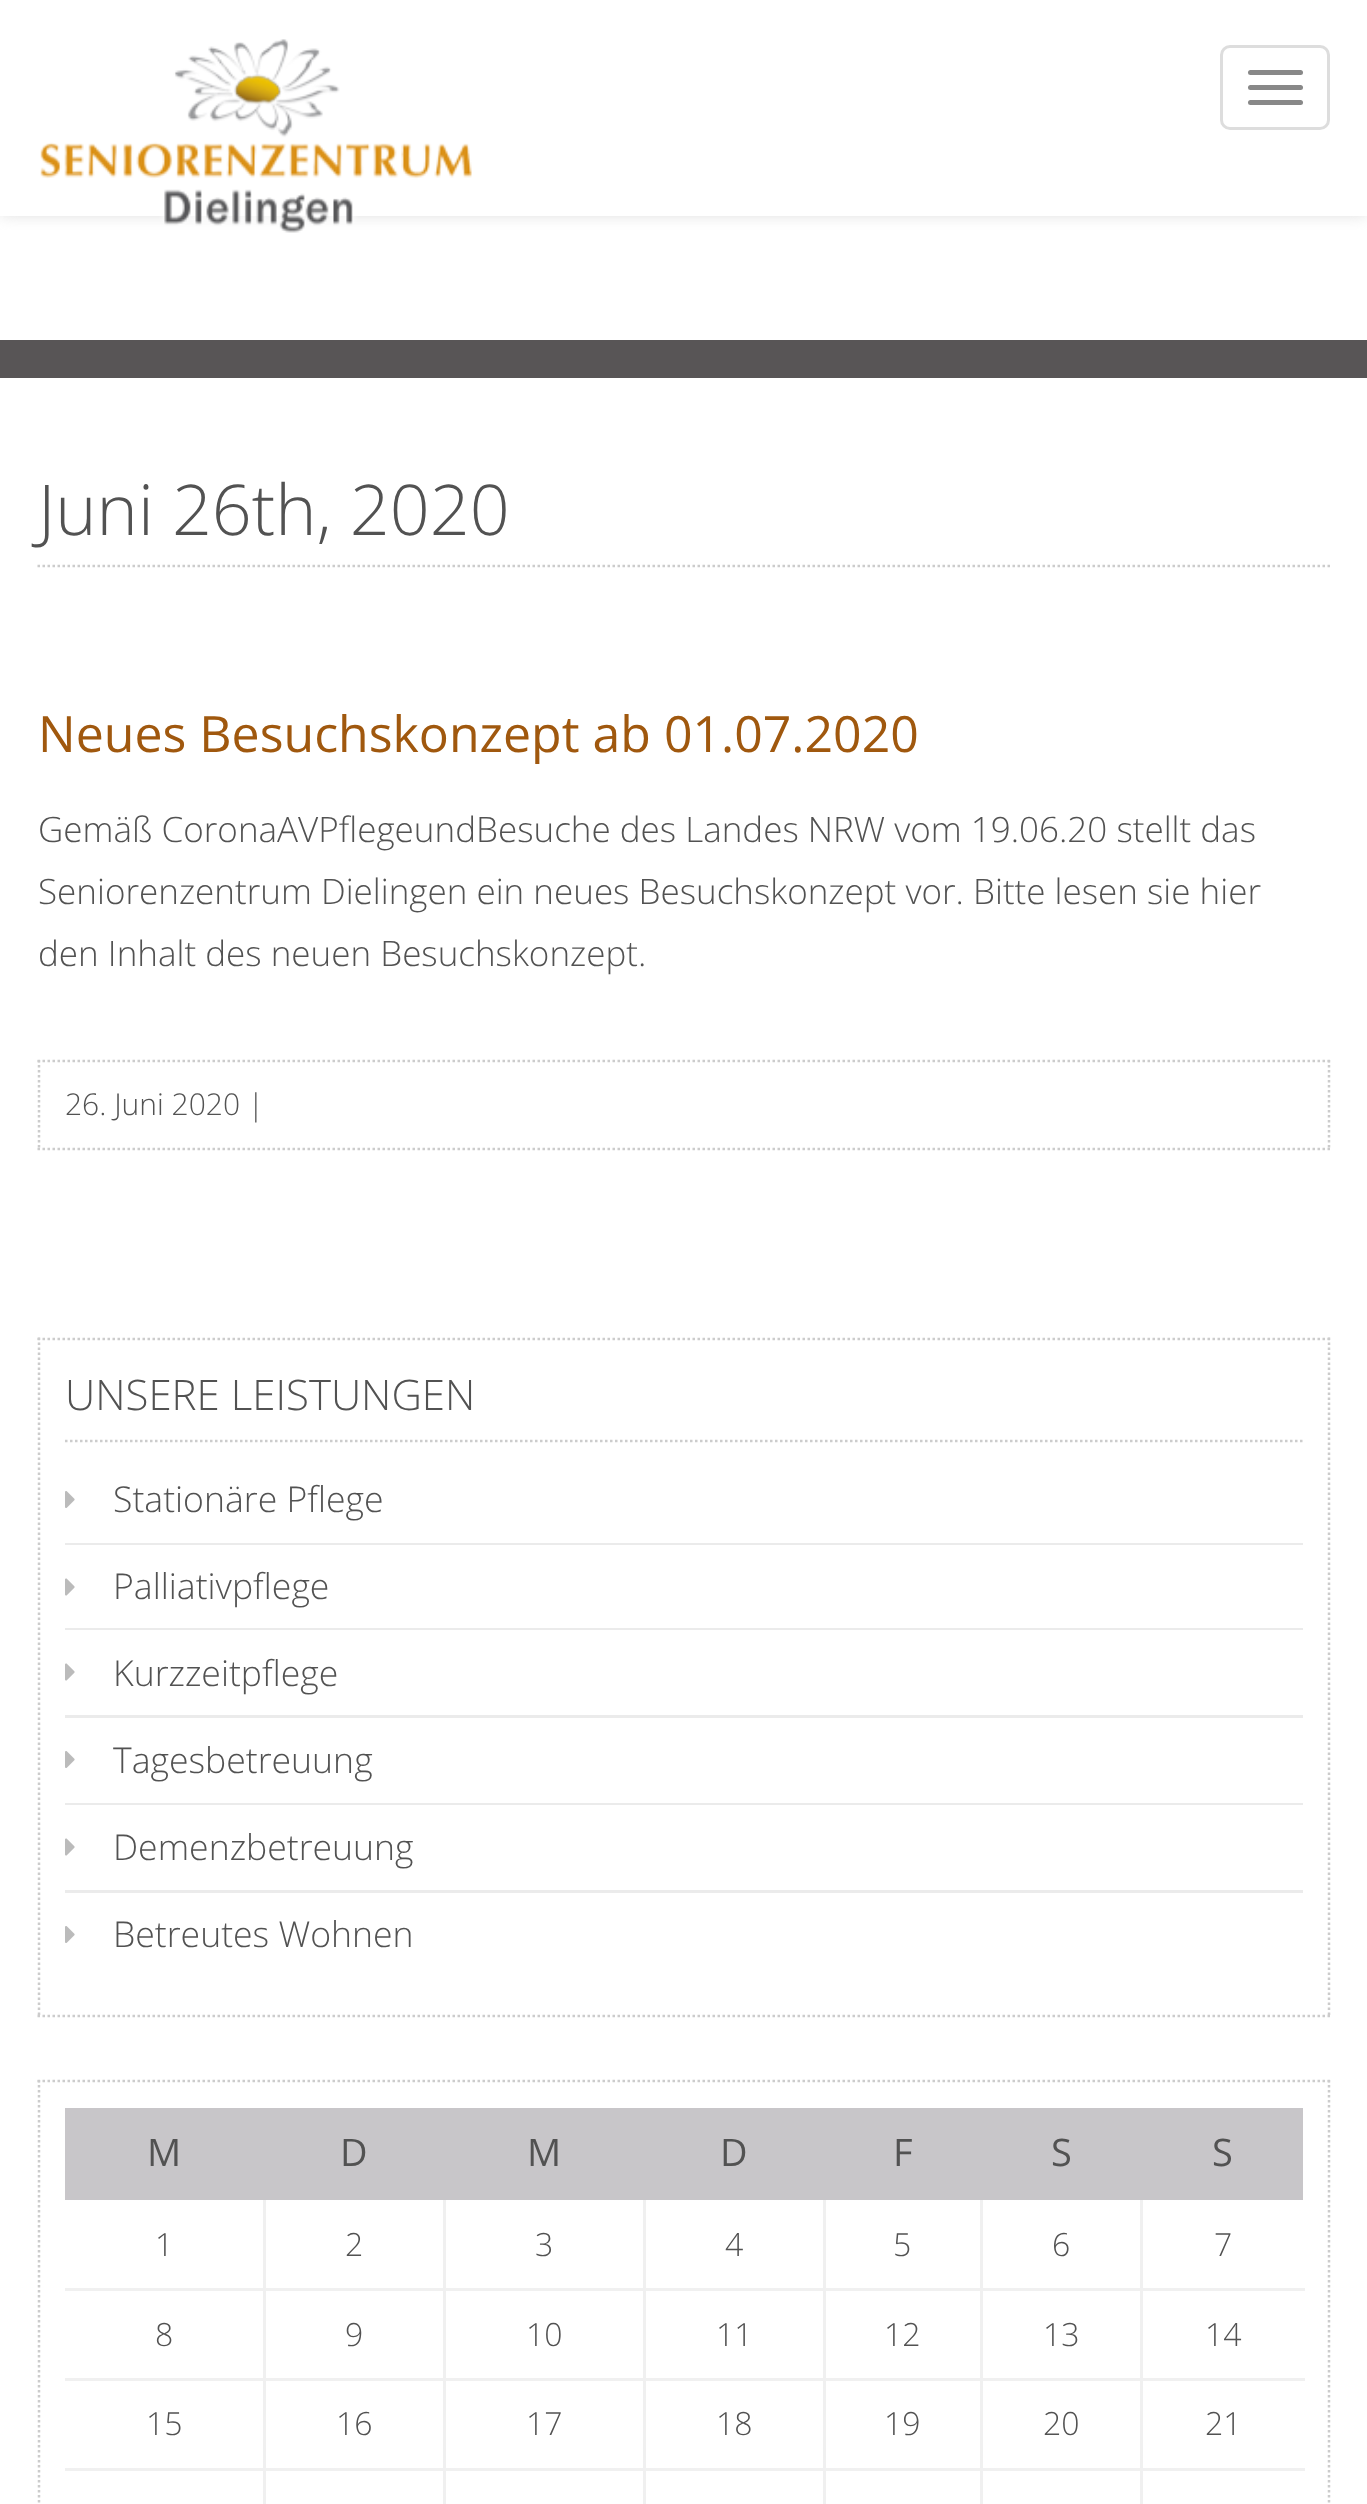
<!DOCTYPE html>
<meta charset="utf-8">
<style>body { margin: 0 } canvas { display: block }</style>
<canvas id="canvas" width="1367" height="2504"></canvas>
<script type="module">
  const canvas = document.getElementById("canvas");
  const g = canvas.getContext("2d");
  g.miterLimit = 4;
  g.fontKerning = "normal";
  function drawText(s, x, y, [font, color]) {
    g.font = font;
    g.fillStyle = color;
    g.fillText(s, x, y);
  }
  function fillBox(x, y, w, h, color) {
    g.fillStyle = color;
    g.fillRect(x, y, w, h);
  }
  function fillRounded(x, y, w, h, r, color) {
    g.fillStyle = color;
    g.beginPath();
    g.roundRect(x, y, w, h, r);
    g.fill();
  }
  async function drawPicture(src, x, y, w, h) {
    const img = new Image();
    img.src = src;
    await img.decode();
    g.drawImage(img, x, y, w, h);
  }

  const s1 = ["300 70px Open Sans", "#525252"];
  const s2 = ["50px Open Sans", "#A0580E"];
  const s3 = ["300 35px Open Sans", "#525252"];
  const s4 = ["300 30px Open Sans", "#525252"];
  const s5 = ["300 42px Open Sans", "#525252"];
  const s6 = ["300 35.6px Open Sans", "#525252"];
  const s7 = ["38px Open Sans", "#525252"];
  const s8 = ["300 32px Open Sans", "#525252"];

  fillBox(0, 0, 1367, 2504, "#FFFFFF");
  g.save();
  g.beginPath();
  g.rect(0, 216, 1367, 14);
  g.clip();
  g.fillStyle = "#DDDDDD";
  g.filter = "blur(7.5px)";
  g.beginPath();
  g.rect(0, 0, 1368, 215);
  g.fill();
  g.filter = "none";
  g.restore();
  fillBox(0, 215, 1367, 1, "#FFFFFF");
  await drawPicture("pic1.png", 40, 39, 432, 194);
  g.beginPath();
  g.roundRect(1221.5, 46.5, 107, 82, 8.5);
  g.strokeStyle = "#DDDDDD";
  g.lineWidth = 3;
  g.stroke();
  fillRounded(1248, 70, 55, 5, 2.5, "#888888");
  fillRounded(1248, 85, 55, 5, 2.5, "#888888");
  fillRounded(1248, 100, 55, 5, 2.5, "#888888");
  fillBox(0, 340, 1367, 38, "#585556");
  g.beginPath();
  g.moveTo(37.5, 566);
  g.lineTo(1330, 566);
  g.strokeStyle = "#CCCCCC";
  g.lineWidth = 2.5;
  g.setLineDash([2.5, 2.5]);
  g.stroke();
  drawText("Juni 26th, 2020", 38, 535, s1);
  drawText("Neues Besuchskonzept ab 01.07.2020", 38, 752, s2);
  drawText("Gemäß CoronaAVPflegeundBesuche des Landes NRW vom 19.06.20 stellt das", 38, 842, s3);
  drawText("Seniorenzentrum Dielingen ein neues Besuchskonzept vor. Bitte lesen sie hier", 38, 904, s3);
  drawText("den Inhalt des neuen Besuchskonzept.", 38, 966, s3);
  g.beginPath();
  g.moveTo(37.5, 1061);
  g.lineTo(1330, 1061);
  g.stroke();
  g.beginPath();
  g.moveTo(1329, 1060);
  g.lineTo(1329, 1150);
  g.stroke();
  g.beginPath();
  g.moveTo(37.5, 1149);
  g.lineTo(1330, 1149);
  g.stroke();
  g.beginPath();
  g.moveTo(39, 1060);
  g.lineTo(39, 1150);
  g.stroke();
  drawText("26. Juni 2020 |", 65, 1115, s4);
  g.beginPath();
  g.moveTo(37.5, 1339);
  g.lineTo(1330, 1339);
  g.stroke();
  g.beginPath();
  g.moveTo(1329, 1337.5);
  g.lineTo(1329, 2017.5);
  g.stroke();
  g.beginPath();
  g.moveTo(37.5, 2016);
  g.lineTo(1330, 2016);
  g.stroke();
  g.beginPath();
  g.moveTo(39, 1337.5);
  g.lineTo(39, 2017.5);
  g.stroke();
  g.beginPath();
  g.moveTo(65, 1441);
  g.lineTo(1302.5, 1441);
  g.stroke();
  drawText("UNSERE LEISTUNGEN", 65, 1410, s5);
  fillBox(65, 1543, 1238, 2, "#EBEBEB");
  await drawPicture("pic2.png", 65, 1491, 10, 17);
  drawText("Stationäre Pflege", 113, 1512, s6);
  fillBox(65, 1628, 1238, 2, "#EBEBEB");
  await drawPicture("pic3.png", 65, 1578, 10, 18);
  drawText("Palliativpflege", 113, 1599, s6);
  fillBox(65, 1715, 1238, 3, "#EBEBEB");
  await drawPicture("pic3.png", 65, 1663, 10, 18);
  drawText("Kurzzeitpflege", 113, 1686, s6);
  fillBox(65, 1803, 1238, 2, "#EBEBEB");
  await drawPicture("pic2.png", 65, 1751, 10, 17);
  drawText("Tagesbetreuung", 113, 1773, s6);
  fillBox(65, 1890, 1238, 3, "#EBEBEB");
  await drawPicture("pic3.png", 65, 1838, 10, 18);
  drawText("Demenzbetreuung", 113, 1860, s6);
  await drawPicture("pic2.png", 65, 1926, 10, 17);
  drawText("Betreutes Wohnen", 113, 1947, s6);
  g.beginPath();
  g.moveTo(37.5, 2081);
  g.lineTo(1330, 2081);
  g.stroke();
  g.beginPath();
  g.moveTo(1329, 2080);
  g.lineTo(1329, 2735);
  g.stroke();
  g.beginPath();
  g.moveTo(39, 2080);
  g.lineTo(39, 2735);
  g.stroke();
  fillBox(65, 2108, 1238, 92, "#C8C6C9");
  drawText("M", 147, 2166, s7);
  drawText("D", 340, 2166, s7);
  drawText("M", 527, 2166, s7);
  drawText("D", 720, 2166, s7);
  drawText("F", 893, 2166, s7);
  drawText("S", 1051, 2166, s7);
  drawText("S", 1212, 2166, s7);
  fillBox(1140, 2468, 3, 36, "#F0F0F0");
  fillBox(1140, 2468, 165, 3, "#F0F0F0");
  fillBox(1140, 2378, 3, 92, "#F0F0F0");
  fillBox(1140, 2378, 165, 3, "#F0F0F0");
  fillBox(1140, 2288, 3, 92, "#F0F0F0");
  fillBox(1140, 2288, 165, 3, "#F0F0F0");
  fillBox(1140, 2200, 3, 90, "#F0F0F0");
  fillBox(980, 2468, 3, 36, "#F0F0F0");
  fillBox(980, 2468, 163, 3, "#F0F0F0");
  fillBox(980, 2378, 3, 92, "#F0F0F0");
  fillBox(980, 2378, 163, 3, "#F0F0F0");
  fillBox(980, 2288, 3, 92, "#F0F0F0");
  fillBox(980, 2288, 163, 3, "#F0F0F0");
  fillBox(980, 2200, 3, 90, "#F0F0F0");
  fillBox(823, 2468, 3, 36, "#F0F0F0");
  fillBox(823, 2468, 160, 3, "#F0F0F0");
  fillBox(823, 2378, 3, 92, "#F0F0F0");
  fillBox(823, 2378, 160, 3, "#F0F0F0");
  fillBox(823, 2288, 3, 92, "#F0F0F0");
  fillBox(823, 2288, 160, 3, "#F0F0F0");
  fillBox(823, 2200, 3, 90, "#F0F0F0");
  fillBox(643, 2468, 3, 36, "#F0F0F0");
  fillBox(643, 2468, 182, 3, "#F0F0F0");
  fillBox(643, 2378, 3, 92, "#F0F0F0");
  fillBox(643, 2378, 182, 3, "#F0F0F0");
  fillBox(643, 2288, 3, 92, "#F0F0F0");
  fillBox(643, 2288, 182, 3, "#F0F0F0");
  fillBox(643, 2200, 3, 90, "#F0F0F0");
  fillBox(443, 2468, 3, 36, "#F0F0F0");
  fillBox(443, 2468, 202, 3, "#F0F0F0");
  fillBox(443, 2378, 3, 92, "#F0F0F0");
  fillBox(443, 2378, 202, 3, "#F0F0F0");
  fillBox(443, 2288, 3, 92, "#F0F0F0");
  fillBox(443, 2288, 202, 3, "#F0F0F0");
  fillBox(443, 2200, 3, 90, "#F0F0F0");
  fillBox(263, 2468, 3, 36, "#F0F0F0");
  fillBox(263, 2468, 182, 3, "#F0F0F0");
  fillBox(263, 2378, 3, 92, "#F0F0F0");
  fillBox(263, 2378, 182, 3, "#F0F0F0");
  fillBox(263, 2288, 3, 92, "#F0F0F0");
  fillBox(263, 2288, 182, 3, "#F0F0F0");
  fillBox(263, 2200, 3, 90, "#F0F0F0");
  fillBox(65, 2288, 200, 3, "#F0F0F0");
  drawText("1", 155, 2256, s8);
  drawText("2", 345, 2256, s8);
  drawText("3", 535, 2256, s8);
  drawText("4", 725, 2256, s8);
  drawText("5", 893, 2256, s8);
  drawText("6", 1052, 2256, s8);
  drawText("7", 1214, 2256, s8);
  fillBox(65, 2378, 200, 3, "#F0F0F0");
  drawText("8", 155, 2346, s8);
  drawText("9", 345, 2346, s8);
  drawText("10", 526, 2346, s8);
  drawText("11", 716, 2346, s8);
  drawText("12", 884, 2346, s8);
  drawText("13", 1043, 2346, s8);
  drawText("14", 1205, 2346, s8);
  fillBox(65, 2468, 200, 3, "#F0F0F0");
  drawText("15", 146, 2435, s8);
  drawText("16", 336, 2435, s8);
  drawText("17", 526, 2435, s8);
  drawText("18", 716, 2435, s8);
  drawText("19", 884, 2435, s8);
  drawText("20", 1043, 2435, s8);
  drawText("21", 1205, 2435, s8);
</script>
